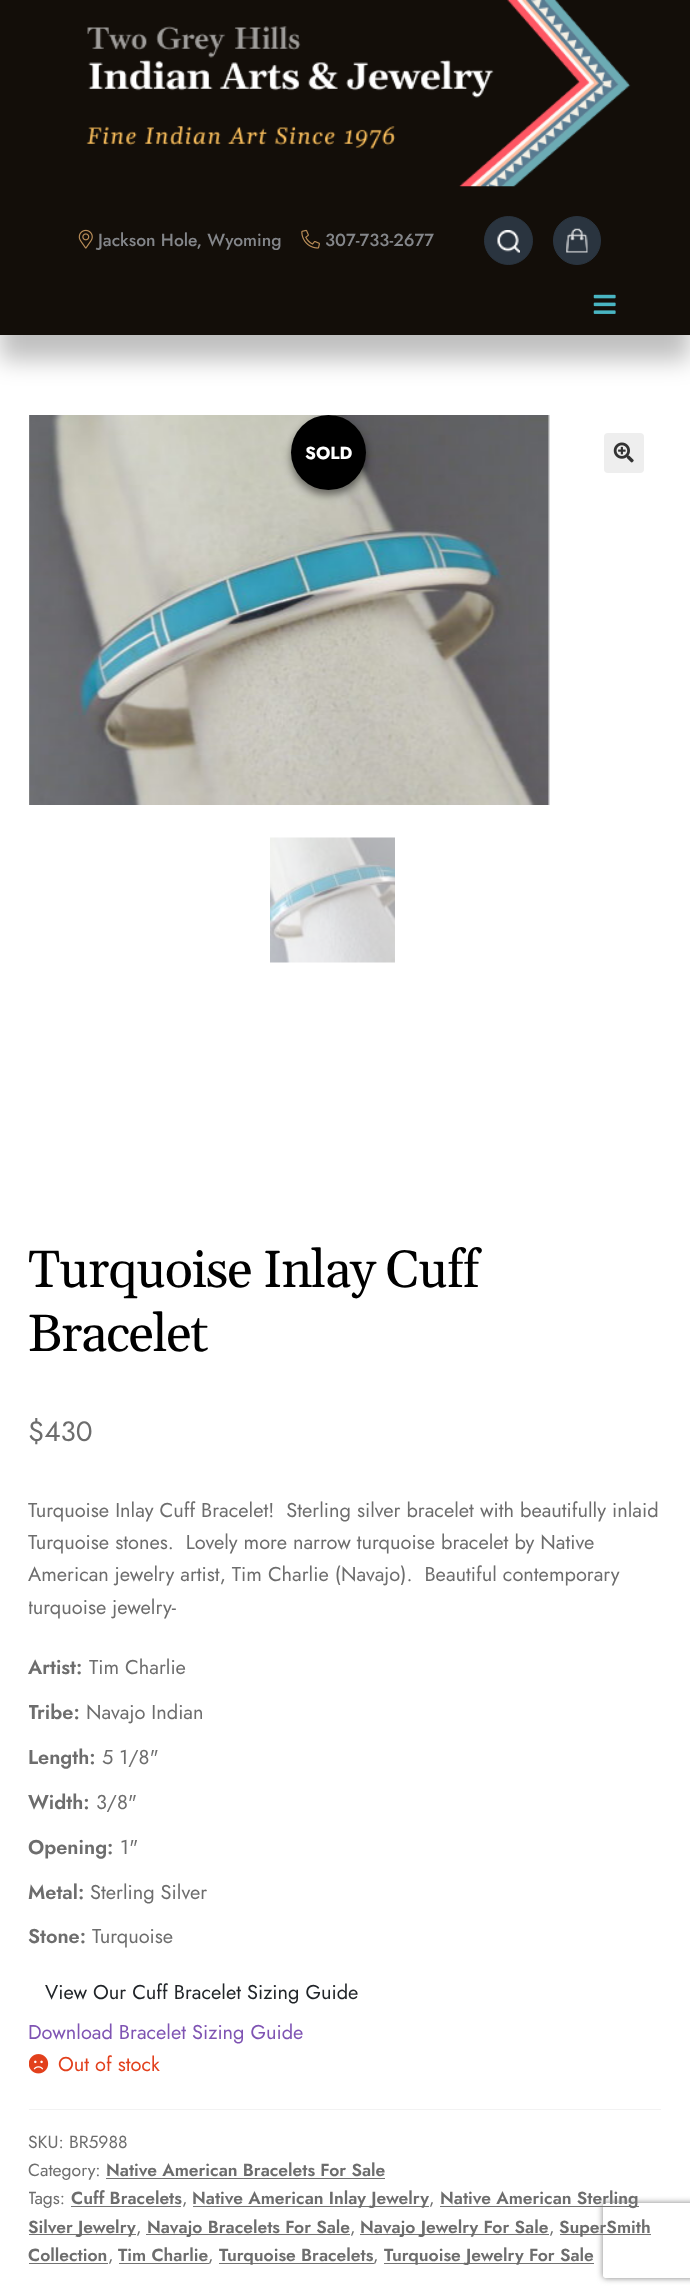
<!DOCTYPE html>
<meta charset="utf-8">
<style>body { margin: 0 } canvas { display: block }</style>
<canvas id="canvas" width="690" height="2295"></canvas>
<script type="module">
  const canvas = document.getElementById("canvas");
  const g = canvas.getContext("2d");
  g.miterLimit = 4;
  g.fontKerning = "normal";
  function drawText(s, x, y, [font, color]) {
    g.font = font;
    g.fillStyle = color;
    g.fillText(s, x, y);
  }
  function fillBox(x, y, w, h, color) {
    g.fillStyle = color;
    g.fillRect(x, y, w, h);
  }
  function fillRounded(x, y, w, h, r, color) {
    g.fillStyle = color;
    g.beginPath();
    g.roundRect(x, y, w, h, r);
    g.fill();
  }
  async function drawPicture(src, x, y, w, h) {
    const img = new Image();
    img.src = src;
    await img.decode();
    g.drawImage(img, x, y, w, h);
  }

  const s1 = ["500 17.5px Jost", "#84868A"];
  const s2 = ["bold 17.5px Jost", "#FFFFFF"];
  const s3 = ["52.25px Gelasio", "#000000"];
  const s4 = ["28px Jost", "#6D6D6D"];
  const s5 = ["20px Jost", "#6D6D6D"];
  const s6 = ["600 20px Jost", "#6D6D6D"];
  const s7 = ["20px Jost", "#212529"];
  const s8 = ["20px Jost", "#7F54B3"];
  const s9 = ["20px Jost", "#E2401C"];
  const s10 = ["17.5px Jost", "#6D6D6D"];
  const s11 = ["600 17.5px Jost", "#6D6D6D"];

  fillBox(0, 0, 690, 2295, "#FFFFFF");
  g.fillStyle = "rgba(0, 0, 0, 0.25)";
  g.filter = "blur(12.5px)";
  g.beginPath();
  g.rect(0, 25, 690, 335);
  g.fill();
  g.filter = "none";
  fillBox(0, 0, 690, 335, "#130E09");
  await drawPicture("pic1.png", 86, 0, 545, 187);
  await drawPicture("pic2.png", 78, 229, 15, 20);
  drawText("Jackson Hole, Wyoming", 98, 246, s1);
  await drawPicture("pic3.png", 301, 229, 19, 20);
  drawText("307-733-2677", 325, 246, s1);
  g.fillStyle = "#2A343F";
  g.beginPath();
  g.arc(508.5, 240.5, 24, 0, Math.PI * 2);
  g.fill();
  g.strokeStyle = "#2A343F";
  g.stroke();
  await drawPicture("pic4.png", 497, 230, 23, 23);
  g.beginPath();
  g.roundRect(553.5, 216.5, 47, 48, 23.5);
  g.fill();
  g.stroke();
  await drawPicture("pic5.png", 566, 228, 22, 25);
  await drawPicture("pic6.png", 593, 294, 23, 20);
  await drawPicture("pic7.png", 29, 415, 521, 390);
  g.save();
  g.beginPath();
  g.rect(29, 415, 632, 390);
  g.clip();
  g.fillStyle = "rgba(0, 0, 0, 0.5)";
  g.filter = "blur(4px)";
  g.beginPath();
  g.roundRect(291, 420, 75, 75, 37.5);
  g.fill();
  g.filter = "none";
  g.restore();
  g.fillStyle = "#000000";
  g.beginPath();
  g.arc(328.5, 452.5, 37.5, 0, Math.PI * 2);
  g.fill();
  drawText("SOLD", 305, 459, s2);
  fillRounded(604, 433, 40, 40, 4, "#EEEEEE");
  await drawPicture("pic8.png", 613, 442, 21, 21);
  await drawPicture("pic9.png", 270, 837, 125, 126);
  g.letterSpacing = "-1.25px";
  drawText("Turquoise Inlay Cuff", 28, 1287, s3);
  drawText("Bracelet", 28, 1351, s3);
  g.letterSpacing = "0px";
  drawText("$430", 28, 1441, s4);
  drawText("Turquoise Inlay Cuff Bracelet!  Sterling silver bracelet with beautifully inlaid", 28, 1517, s5);
  drawText("Turquoise stones.  Lovely more narrow turquoise bracelet by Native", 28, 1549, s5);
  drawText("American jewelry artist, Tim Charlie (Navajo).  Beautiful contemporary", 28, 1581, s5);
  g.save();
  g.beginPath();
  g.rect(29, 415, 632, 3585);
  g.clip();
  drawText("turquoise jewelry-", 28, 1614, s5);
  g.restore();
  drawText("Artist:", 28, 1674, s6);
  drawText("Tim Charlie", 89, 1674, s5);
  g.save();
  g.beginPath();
  g.rect(29, 415, 632, 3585);
  g.clip();
  drawText("Tribe:", 28, 1719, s6);
  g.restore();
  drawText("Navajo Indian", 86, 1719, s5);
  drawText("Length:", 28, 1764, s6);
  drawText("5 1/8\"", 102, 1764, s5);
  drawText("Width:", 28, 1809, s6);
  drawText("3/8\"", 96, 1809, s5);
  drawText("Opening:", 28, 1854, s6);
  drawText("1\"", 120, 1854, s5);
  drawText("Metal:", 28, 1899, s6);
  drawText("Sterling Silver", 90, 1899, s5);
  drawText("Stone:", 28, 1943, s6);
  drawText("Turquoise", 92, 1943, s5);
  drawText("View Our Cuff Bracelet Sizing Guide", 45, 1999, s7);
  drawText("Download Bracelet Sizing Guide", 28, 2039, s8);
  await drawPicture("pic10.png", 29, 2054, 20, 20);
  drawText("Out of stock", 58, 2071, s9);
  fillBox(29, 2109, 632, 1, "#F2F2F2");
  drawText("SKU: BR5988", 28, 2148, s10);
  drawText("Category:", 28, 2176, s10);
  drawText("Native American Bracelets For Sale", 106, 2176, s11);
  fillBox(106, 2178, 279, 1, "#727272");
  g.save();
  g.beginPath();
  g.rect(29, 415, 632, 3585);
  g.clip();
  drawText("Tags:", 28, 2204, s10);
  g.restore();
  drawText("Cuff Bracelets", 71, 2204, s11);
  fillBox(71, 2206, 110, 1, "#727272");
  drawText(",", 182, 2204, s10);
  fillBox(193, 2206, 236, 1, "#727272");
  drawText("Native American Inlay Jewelry", 192, 2204, s11);
  drawText(",", 429, 2204, s10);
  fillBox(440, 2206, 199, 1, "#727272");
  drawText("Native American Sterling", 440, 2204, s11);
  fillBox(29, 2234, 107, 1, "#727272");
  drawText("Silver Jewelry", 28, 2233, s11);
  drawText(",", 136, 2233, s10);
  fillBox(146, 2234, 204, 1, "#727272");
  drawText("Navajo Bracelets For Sale", 147, 2233, s11);
  drawText(",", 350, 2233, s10);
  fillBox(360, 2234, 189, 1, "#727272");
  drawText("Navajo Jewelry For Sale", 360, 2233, s11);
  drawText(",", 549, 2233, s10);
  fillBox(560, 2234, 91, 1, "#727272");
  drawText("SuperSmith", 559, 2233, s11);
  drawText("Collection", 28, 2261, s11);
  fillBox(29, 2263, 79, 1, "#727272");
  drawText(",", 108, 2261, s10);
  drawText("Tim Charlie", 118, 2261, s11);
  fillBox(119, 2263, 90, 1, "#727272");
  drawText(",", 208, 2261, s10);
  fillBox(219, 2263, 155, 1, "#727272");
  drawText("Turquoise Bracelets", 219, 2261, s11);
  drawText(",", 373, 2261, s10);
  fillBox(384, 2263, 210, 1, "#727272");
  drawText("Turquoise Jewelry For Sale", 384, 2261, s11);
  g.save();
  g.beginPath();
  g.moveTo(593, 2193);
  g.lineTo(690, 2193);
  g.lineTo(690, 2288);
  g.lineTo(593, 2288);
  g.closePath();
  g.moveTo(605.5, 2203);
  g.lineTo(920.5, 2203);
  g.bezierCurveTo(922, 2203, 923, 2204, 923, 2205.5);
  g.lineTo(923, 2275.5);
  g.bezierCurveTo(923, 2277, 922, 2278, 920.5, 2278);
  g.lineTo(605.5, 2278);
  g.bezierCurveTo(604, 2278, 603, 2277, 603, 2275.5);
  g.lineTo(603, 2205.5);
  g.bezierCurveTo(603, 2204, 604, 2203, 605.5, 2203);
  g.closePath();
  g.clip("evenodd");
  g.fillStyle = "#808080";
  g.filter = "blur(3px)";
  g.beginPath();
  g.roundRect(603, 2203, 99, 75, 2.5);
  g.fill();
  g.filter = "none";
  g.restore();
</script>
